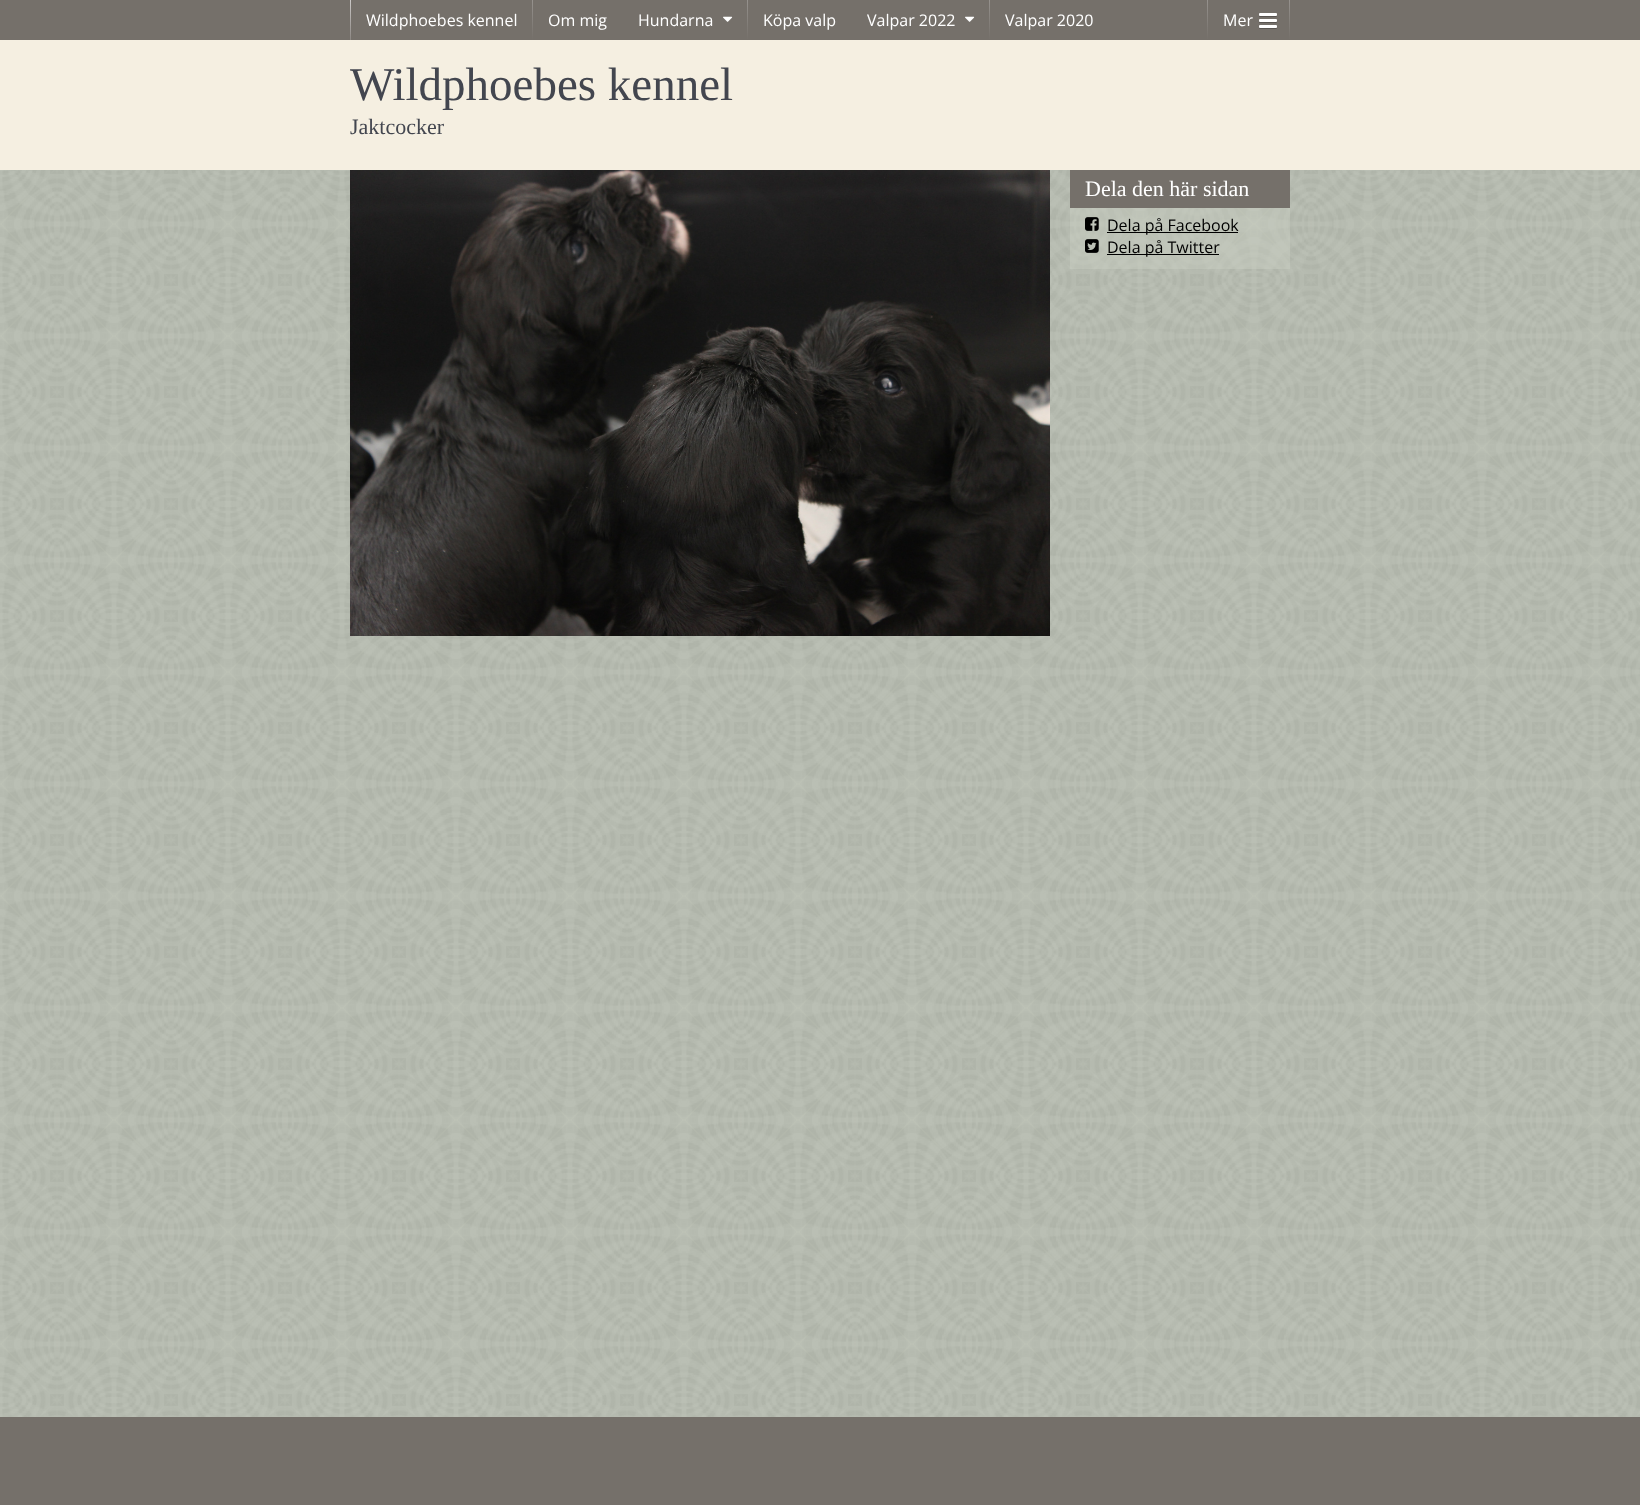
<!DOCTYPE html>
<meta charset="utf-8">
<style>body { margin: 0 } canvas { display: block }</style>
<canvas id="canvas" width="1640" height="1505"></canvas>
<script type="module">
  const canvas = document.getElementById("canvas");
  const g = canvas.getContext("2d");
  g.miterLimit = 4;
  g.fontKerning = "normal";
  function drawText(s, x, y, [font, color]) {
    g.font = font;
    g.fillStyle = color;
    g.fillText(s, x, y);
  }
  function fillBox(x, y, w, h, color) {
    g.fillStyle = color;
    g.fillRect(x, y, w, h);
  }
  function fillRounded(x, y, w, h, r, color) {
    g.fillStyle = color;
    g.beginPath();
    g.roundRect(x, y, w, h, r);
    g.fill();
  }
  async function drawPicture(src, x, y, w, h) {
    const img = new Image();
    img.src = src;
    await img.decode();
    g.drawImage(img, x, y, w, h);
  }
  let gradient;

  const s1 = ["16px Open Sans", "#FFFFFF"];
  const s2 = ["47px Liberation Serif", "#43464F"];
  const s3 = ["22px Liberation Serif", "#43464F"];
  const s4 = ["22px Liberation Serif", "#FFFFFF"];
  const s5 = ["16px Open Sans", "#000000"];

  fillBox(0, 0, 1640, 1505, "#CDD3C5");
  await drawPicture("pic1.png", 0, 170, 1640, 1247);
  fillBox(0, 40, 1640, 130, "#F5EFE1");
  fillBox(0, 0, 1640, 40, "#75706A");
  gradient = g.createLinearGradient(351, 0, 351, 40);
  gradient.addColorStop(0, "#96928E");
  gradient.addColorStop(1, "#75706A");
  g.fillStyle = gradient;
  g.fillRect(350, 0, 1, 40);
  drawText("Wildphoebes kennel", 366, 26, s1);
  gradient = g.createLinearGradient(533, 0, 533, 40);
  gradient.addColorStop(0, "#96928E");
  gradient.addColorStop(1, "#75706A");
  g.fillStyle = gradient;
  g.fillRect(532, 0, 1, 40);
  drawText("Om mig", 548, 26, s1);
  fillBox(350, 0, 1, 40, "rgba(200, 198, 195, 0.24)");
  gradient = g.createLinearGradient(351, 0, 351, 40);
  gradient.addColorStop(0, "rgba(255, 255, 255, 0.24)");
  gradient.addColorStop(1, "rgba(117, 112, 106, 0.24)");
  g.fillStyle = gradient;
  g.fillRect(350, 0, 1, 40);
  drawText("Hundarna", 638, 26, s1);
  await drawPicture("pic2.png", 723, 16, 10, 6);
  gradient = g.createLinearGradient(748, 0, 748, 40);
  gradient.addColorStop(0, "#96928E");
  gradient.addColorStop(1, "#75706A");
  g.fillStyle = gradient;
  g.fillRect(747, 0, 1, 40);
  drawText("Köpa valp", 763, 26, s1);
  fillBox(350, 0, 1, 40, "rgba(200, 198, 195, 0.24)");
  gradient = g.createLinearGradient(351, 0, 351, 40);
  gradient.addColorStop(0, "rgba(255, 255, 255, 0.24)");
  gradient.addColorStop(1, "rgba(117, 112, 106, 0.24)");
  g.fillStyle = gradient;
  g.fillRect(350, 0, 1, 40);
  drawText("Valpar 2022", 867, 26, s1);
  await drawPicture("pic2.png", 965, 16, 10, 6);
  gradient = g.createLinearGradient(990, 0, 990, 40);
  gradient.addColorStop(0, "#96928E");
  gradient.addColorStop(1, "#75706A");
  g.fillStyle = gradient;
  g.fillRect(989, 0, 1, 40);
  drawText("Valpar 2020", 1005, 26, s1);
  gradient = g.createLinearGradient(1208, 0, 1208, 40);
  gradient.addColorStop(0, "#96928E");
  gradient.addColorStop(1, "#75706A");
  g.fillStyle = gradient;
  g.fillRect(1207, 0, 1, 40);
  drawText("Mer", 1223, 26, s1);
  g.fillStyle = "#585450";
  g.beginPath();
  g.moveTo(1259, 15);
  g.bezierCurveTo(1259, 17.5, 1260, 17, 1262.5, 17);
  g.lineTo(1273.5, 17);
  g.bezierCurveTo(1276, 17, 1277, 17.5, 1277, 15);
  g.bezierCurveTo(1277, 15.5, 1276.5, 16, 1276, 16);
  g.lineTo(1260, 16);
  g.bezierCurveTo(1259.5, 16, 1259, 15.5, 1259, 15);
  g.closePath();
  g.fill();
  fillRounded(1259, 13, 18, 3, 1, "#FFFFFF");
  g.fillStyle = "#585450";
  g.beginPath();
  g.moveTo(1259, 21);
  g.bezierCurveTo(1259, 23.5, 1260, 23, 1262.5, 23);
  g.lineTo(1273.5, 23);
  g.bezierCurveTo(1276, 23, 1277, 23.5, 1277, 21);
  g.bezierCurveTo(1277, 21.5, 1276.5, 22, 1276, 22);
  g.lineTo(1260, 22);
  g.bezierCurveTo(1259.5, 22, 1259, 21.5, 1259, 21);
  g.closePath();
  g.fill();
  fillRounded(1259, 19, 18, 3, 1, "#FFFFFF");
  g.fillStyle = "#585450";
  g.beginPath();
  g.moveTo(1259, 27);
  g.bezierCurveTo(1259, 29.5, 1260, 29, 1262.5, 29);
  g.lineTo(1273.5, 29);
  g.bezierCurveTo(1276, 29, 1277, 29.5, 1277, 27);
  g.bezierCurveTo(1277, 27.5, 1276.5, 28, 1276, 28);
  g.lineTo(1260, 28);
  g.bezierCurveTo(1259.5, 28, 1259, 27.5, 1259, 27);
  g.closePath();
  g.fill();
  fillRounded(1259, 25, 18, 3, 1, "#FFFFFF");
  gradient = g.createLinearGradient(1290, 0, 1290, 40);
  gradient.addColorStop(0, "#96928E");
  gradient.addColorStop(1, "#75706A");
  g.fillStyle = gradient;
  g.fillRect(1289, 0, 1, 40);
  drawText("Wildphoebes kennel", 350, 100, s2);
  drawText("Jaktcocker", 350, 134, s3);
  await drawPicture("pic3.png", 350, 170, 700, 466);
  fillBox(1070, 170, 220, 38, "#75706A");
  drawText("Dela den här sidan", 1085, 196, s4);
  fillBox(1070, 208, 220, 61, "rgba(205, 211, 197, 0.4)");
  await drawPicture("pic4.png", 1085, 217, 14, 14);
  fillBox(1107, 232, 131, 1, "#000000");
  drawText("Dela på Facebook", 1107, 231, s5);
  await drawPicture("pic5.png", 1085, 239, 14, 14);
  fillBox(1107, 254, 112, 1, "#000000");
  drawText("Dela på Twitter", 1107, 253, s5);
  fillBox(0, 1417, 1640, 88, "#75706A");
</script>
